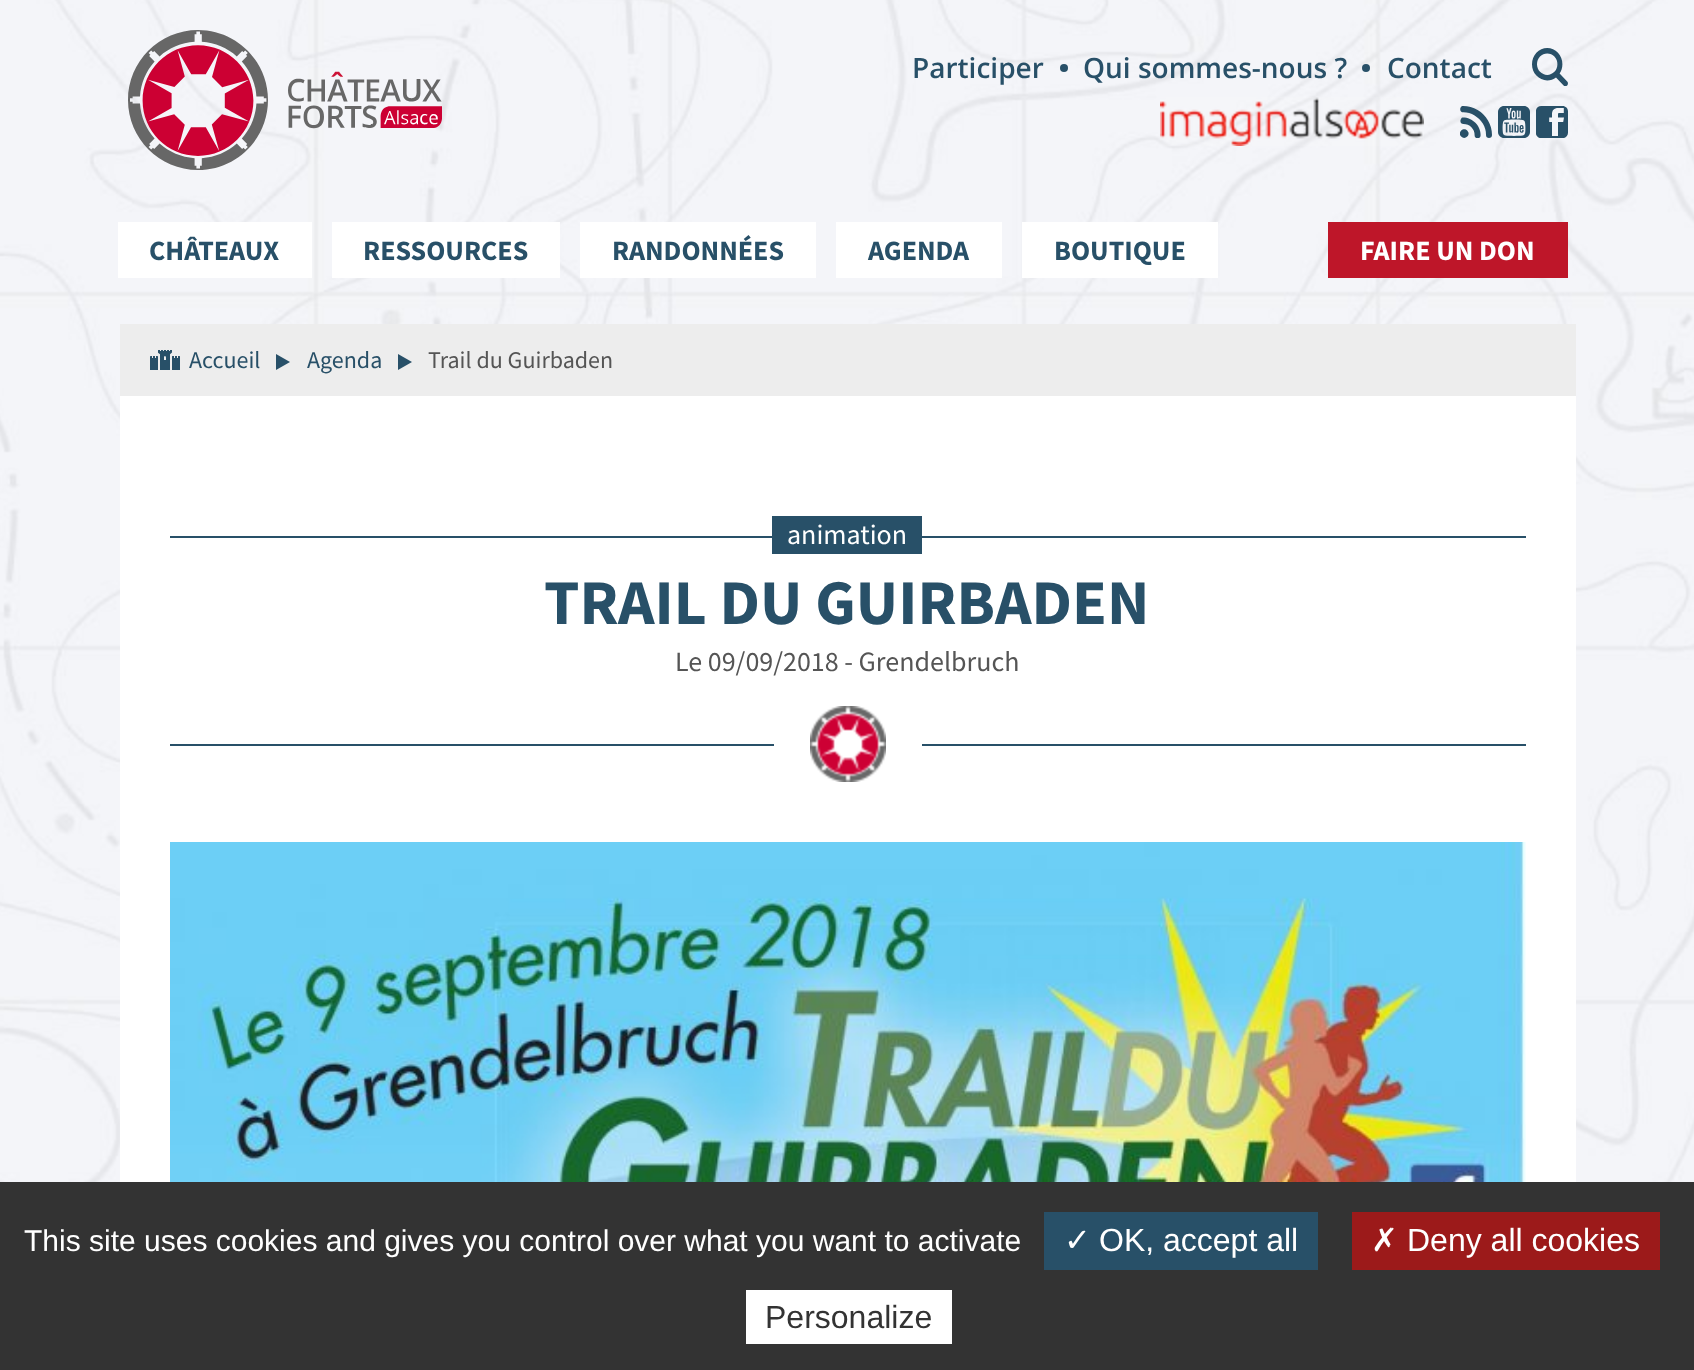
<!DOCTYPE html>
<meta charset="utf-8">
<style>body { margin: 0 } canvas { display: block }</style>
<canvas id="canvas" width="1694" height="1370"></canvas>
<script type="module">
  const canvas = document.getElementById("canvas");
  const g = canvas.getContext("2d");
  g.miterLimit = 4;
  g.fontKerning = "normal";
  function drawText(s, x, y, [font, color]) {
    g.font = font;
    g.fillStyle = color;
    g.fillText(s, x, y);
  }
  function fillBox(x, y, w, h, color) {
    g.fillStyle = color;
    g.fillRect(x, y, w, h);
  }
  async function drawPicture(src, x, y, w, h) {
    const img = new Image();
    img.src = src;
    await img.decode();
    g.drawImage(img, x, y, w, h);
  }

  const s1 = ["600 28px Open Sans", "#285068"];
  const s2 = ["bold 28px Source Sans Pro", "#285068"];
  const s3 = ["bold 28px Source Sans Pro", "#FFFFFF"];
  const s4 = ["24px Source Sans Pro", "#285068"];
  const s5 = ["24px Source Sans Pro", "#555555"];
  const s6 = ["28px Source Sans Pro", "#FFFFFF"];
  const s7 = ["bold 63.75px Source Sans Pro", "#285068"];
  const s8 = ["28px Source Sans Pro", "#555555"];
  const s9 = ["30px Liberation Sans", "#FFFFFF"];
  const s10 = ["32px DejaVu Sans", "#FFFFFF"];
  const s11 = ["32px Liberation Sans", "#FFFFFF"];
  const s12 = ["32px Liberation Sans", "#333333"];

  fillBox(0, 0, 1694, 1370, "#FFFFFF");
  await drawPicture("pic1.png", 0, 0, 1694, 1182);
  await drawPicture("pic2.png", 128, 30, 314, 140);
  drawText("Participer", 912, 78, s1);
  g.beginPath();
  g.arc(1064, 68, 4, 0, Math.PI * 2);
  g.fill();
  drawText("Qui sommes-nous ?", 1083, 78, s1);
  g.beginPath();
  g.arc(1366, 68, 4, 0, Math.PI * 2);
  g.fill();
  drawText("Contact", 1387, 78, s1);
  await drawPicture("pic3.png", 1532, 48, 36, 38);
  await drawPicture("pic4.png", 1160, 97, 264, 49);
  await drawPicture("pic5.png", 1460, 106, 32, 32);
  await drawPicture("pic6.png", 1498, 106, 32, 32);
  await drawPicture("pic7.png", 1536, 106, 32, 32);
  fillBox(118, 222, 194, 56, "#FFFFFF");
  drawText("CHÂTEAUX", 149, 260, s2);
  fillBox(332, 222, 228, 56, "#FFFFFF");
  drawText("RESSOURCES", 363, 260, s2);
  fillBox(580, 222, 236, 56, "#FFFFFF");
  drawText("RANDONNÉES", 612, 260, s2);
  fillBox(836, 222, 166, 56, "#FFFFFF");
  drawText("AGENDA", 868, 260, s2);
  fillBox(1022, 222, 196, 56, "#FFFFFF");
  drawText("BOUTIQUE", 1054, 260, s2);
  fillBox(1328, 222, 240, 56, "#BE1629");
  drawText("FAIRE UN DON", 1360, 260, s3);
  fillBox(120, 396, 1456, 786, "#FFFFFF");
  fillBox(120, 324, 1456, 72, "#EDEDED");
  await drawPicture("pic8.png", 150, 350, 30, 20);
  drawText("Accueil", 189, 368, s4);
  await drawPicture("pic9.png", 276, 354, 14, 16);
  drawText("Agenda", 307, 368, s4);
  await drawPicture("pic9.png", 398, 354, 14, 16);
  drawText("Trail du Guirbaden", 428, 368, s5);
  fillBox(170, 536, 1356, 2, "#285068");
  fillBox(772, 516, 150, 38, "#285068");
  drawText("animation", 787, 544, s6);
  drawText("TRAIL DU GUIRBADEN", 544, 624, s7);
  drawText("Le 09/09/2018 - Grendelbruch", 675, 671, s8);
  fillBox(170, 744, 1356, 2, "#285068");
  fillBox(774, 744, 148, 2, "#FFFFFF");
  await drawPicture("pic10.png", 810, 706, 76, 76);
  await drawPicture("pic11.png", 170, 842, 1356, 340);
  fillBox(0, 1182, 1694, 188, "#333333");
  drawText("This site uses cookies and gives you control over what you want to activate", 24, 1251, s9);
  fillBox(1044, 1212, 274, 58, "#285068");
  drawText("✓", 1064, 1251, s10);
  drawText("OK, accept all", 1099, 1251, s11);
  fillBox(1352, 1212, 308, 58, "#9C1A1A");
  drawText("✗", 1371, 1251, s10);
  drawText("Deny all cookies", 1407, 1251, s11);
  fillBox(746, 1290, 206, 54, "#FFFFFF");
  drawText("Personalize", 765, 1328, s12);
</script>
